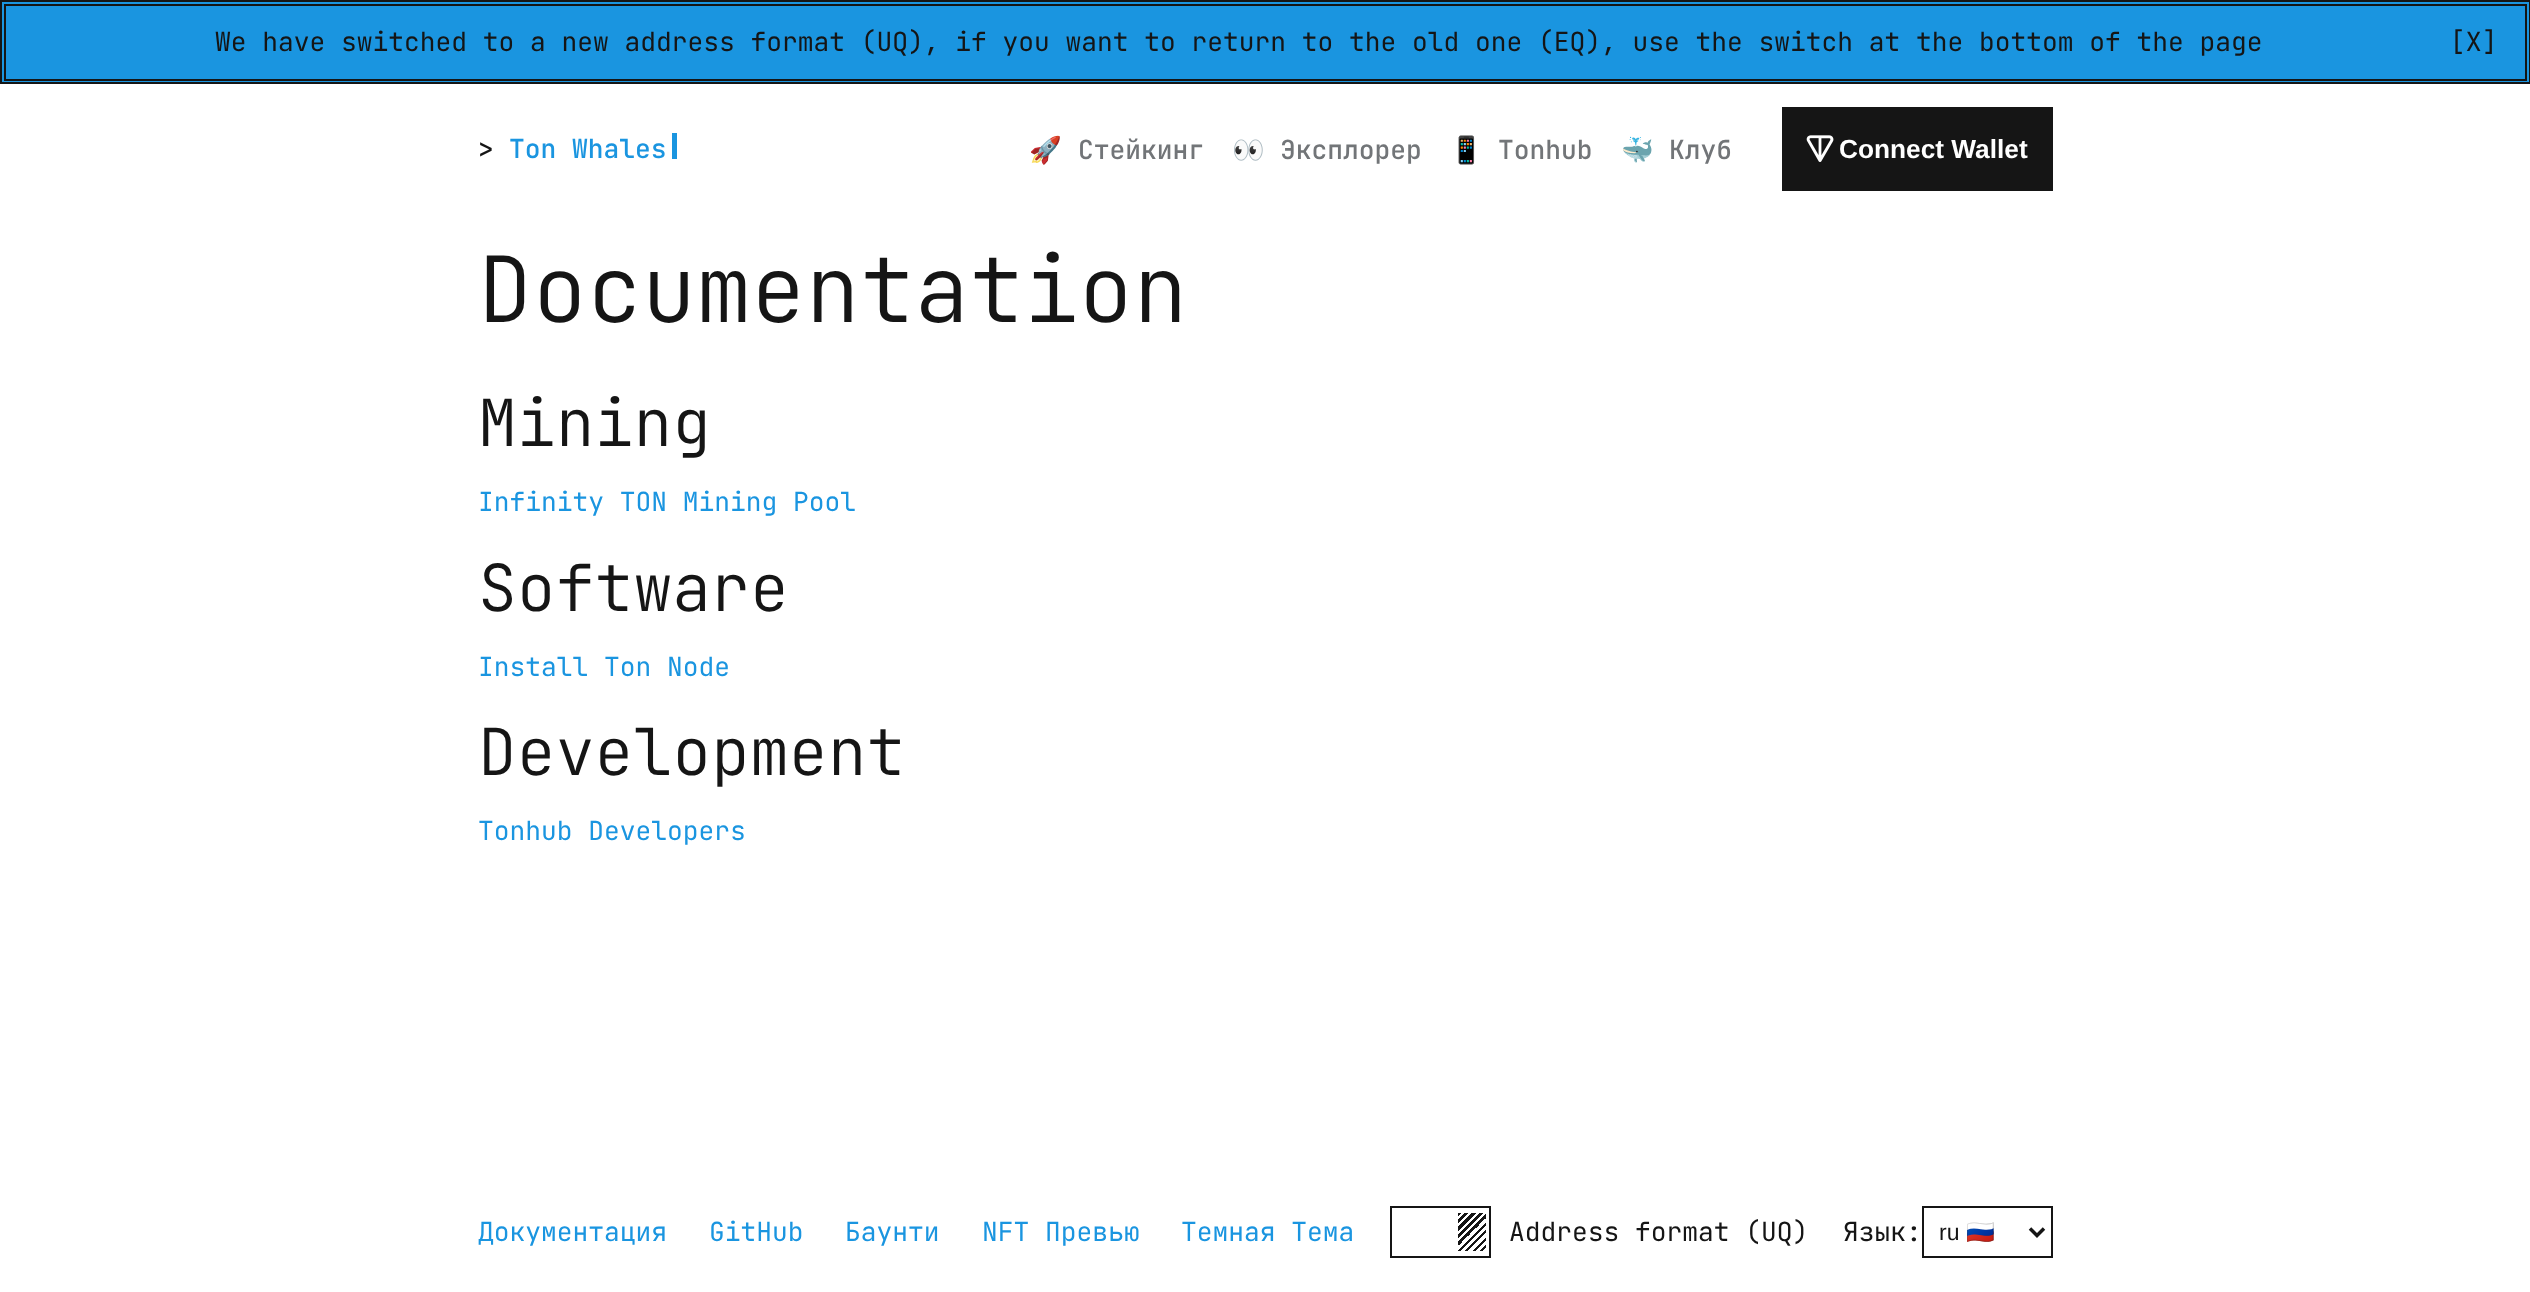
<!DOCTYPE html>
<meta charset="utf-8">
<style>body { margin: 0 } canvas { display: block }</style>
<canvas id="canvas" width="2530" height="1292"></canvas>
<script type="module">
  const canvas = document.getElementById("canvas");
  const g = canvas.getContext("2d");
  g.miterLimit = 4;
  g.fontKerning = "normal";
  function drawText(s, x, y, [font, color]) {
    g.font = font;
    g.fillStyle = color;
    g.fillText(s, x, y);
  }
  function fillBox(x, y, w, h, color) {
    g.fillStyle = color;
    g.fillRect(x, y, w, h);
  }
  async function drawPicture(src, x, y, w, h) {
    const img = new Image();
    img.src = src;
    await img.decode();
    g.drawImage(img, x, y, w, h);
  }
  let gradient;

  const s1 = ["26.25px JetBrains Mono", "#151515"];
  const s2 = ["600 26.25px JetBrains Mono", "#151515"];
  const s3 = ["600 26.25px JetBrains Mono", "#1A95E0"];
  const s4 = ["bold 26.25px Noto Color Emoji", "#727578"];
  const s5 = ["600 26.25px JetBrains Mono", "#727578"];
  const s6 = ["bold 26.25px Liberation Sans", "#FFFFFF"];
  const s7 = ["300 91px JetBrains Mono", "#151515"];
  const s8 = ["300 64.75px JetBrains Mono", "#151515"];
  const s9 = ["26.25px JetBrains Mono", "#1A95E0"];
  const s10 = ["23px Liberation Sans", "#151515"];
  const s11 = ["23px Noto Color Emoji", "#151515"];

  fillBox(0, 0, 2530, 1292, "#FFFFFF");
  g.fillStyle = "#1A95E0";
  g.beginPath();
  g.rect(1, 1, 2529, 82);
  g.fill();
  g.strokeStyle = "#151515";
  g.lineWidth = 2;
  g.stroke();
  g.strokeRect(5, 5, 2521, 75);
  drawText("We have switched to a new address format (UQ), if you want to return to the old one (EQ), use the switch at the bottom of the page", 215, 51, s1);
  drawText("[X]", 2450, 51, s1);
  drawText(">", 478, 158, s2);
  drawText("Ton Whales", 509, 158, s3);
  fillBox(672, 133, 5, 26, "#1A95E0");
  drawText("🚀", 1029, 159, s4);
  drawText("Стейкинг", 1078, 159, s5);
  g.save();
  g.beginPath();
  g.rect(1232, 131, 191, 39);
  g.clip();
  drawText("👀", 1232, 159, s4);
  g.restore();
  drawText("Эксплорер", 1280, 159, s5);
  g.save();
  g.beginPath();
  g.rect(1451, 131, 142, 39);
  g.clip();
  drawText("📱", 1450, 159, s4);
  g.restore();
  drawText("Tonhub", 1498, 159, s5);
  drawText("🐳", 1621, 159, s4);
  drawText("Клуб", 1669, 159, s5);
  fillBox(1782, 107, 271, 84, "#151515");
  await drawPicture("pic1.png", 1806, 135, 28, 27);
  drawText("Connect Wallet", 1839, 158, s6);
  drawText("Documentation", 478, 322, s7);
  drawText("Mining", 478, 446, s8);
  drawText("Infinity TON Mining Pool", 478, 511, s9);
  drawText("Software", 478, 611, s8);
  drawText("Install Ton Node", 478, 676, s9);
  drawText("Development", 478, 775, s8);
  drawText("Tonhub Developers", 478, 840, s9);
  drawText("Документация", 478, 1241, s9);
  drawText("GitHub", 709, 1241, s9);
  drawText("Баунти", 845, 1241, s9);
  drawText("NFT Превью", 982, 1241, s9);
  drawText("Темная Тема", 1181, 1241, s9);
  g.strokeRect(1391, 1207, 99, 50);
  gradient = g.createLinearGradient(1455, 1215, 1489, 1249);
  gradient.addColorStop(0, "#151515");
  gradient.addColorStop(0.06, "#151515");
  gradient.addColorStop(0.06, "#FFFFFF");
  gradient.addColorStop(0.11, "#FFFFFF");
  gradient.addColorStop(0.11, "#151515");
  gradient.addColorStop(0.17, "#151515");
  gradient.addColorStop(0.17, "#FFFFFF");
  gradient.addColorStop(0.22, "#FFFFFF");
  gradient.addColorStop(0.22, "#151515");
  gradient.addColorStop(0.28, "#151515");
  gradient.addColorStop(0.28, "#FFFFFF");
  gradient.addColorStop(0.33, "#FFFFFF");
  gradient.addColorStop(0.33, "#151515");
  gradient.addColorStop(0.39, "#151515");
  gradient.addColorStop(0.39, "#FFFFFF");
  gradient.addColorStop(0.44, "#FFFFFF");
  gradient.addColorStop(0.44, "#151515");
  gradient.addColorStop(0.5, "#151515");
  gradient.addColorStop(0.5, "#FFFFFF");
  gradient.addColorStop(0.56, "#FFFFFF");
  gradient.addColorStop(0.56, "#151515");
  gradient.addColorStop(0.61, "#151515");
  gradient.addColorStop(0.61, "#FFFFFF");
  gradient.addColorStop(0.67, "#FFFFFF");
  gradient.addColorStop(0.67, "#151515");
  gradient.addColorStop(0.72, "#151515");
  gradient.addColorStop(0.72, "#FFFFFF");
  gradient.addColorStop(0.78, "#FFFFFF");
  gradient.addColorStop(0.78, "#151515");
  gradient.addColorStop(0.83, "#151515");
  gradient.addColorStop(0.83, "#FFFFFF");
  gradient.addColorStop(0.89, "#FFFFFF");
  gradient.addColorStop(0.89, "#151515");
  gradient.addColorStop(0.94, "#151515");
  gradient.addColorStop(0.94, "#FFFFFF");
  gradient.addColorStop(1, "#FFFFFF");
  g.fillStyle = gradient;
  g.fillRect(1458, 1213, 28, 38);
  drawText("Address format (UQ)", 1509, 1241, s1);
  drawText("Язык:", 1843, 1241, s1);
  g.strokeRect(1923, 1207, 129, 50);
  g.beginPath();
  g.moveTo(2030, 1228.5);
  g.lineTo(2037, 1235.5);
  g.lineTo(2044, 1228.5);
  g.lineWidth = 3.5;
  g.stroke();
  drawText("ru", 1939, 1240, s10);
  drawText("🇷🇺", 1966, 1240, s11);
</script>
